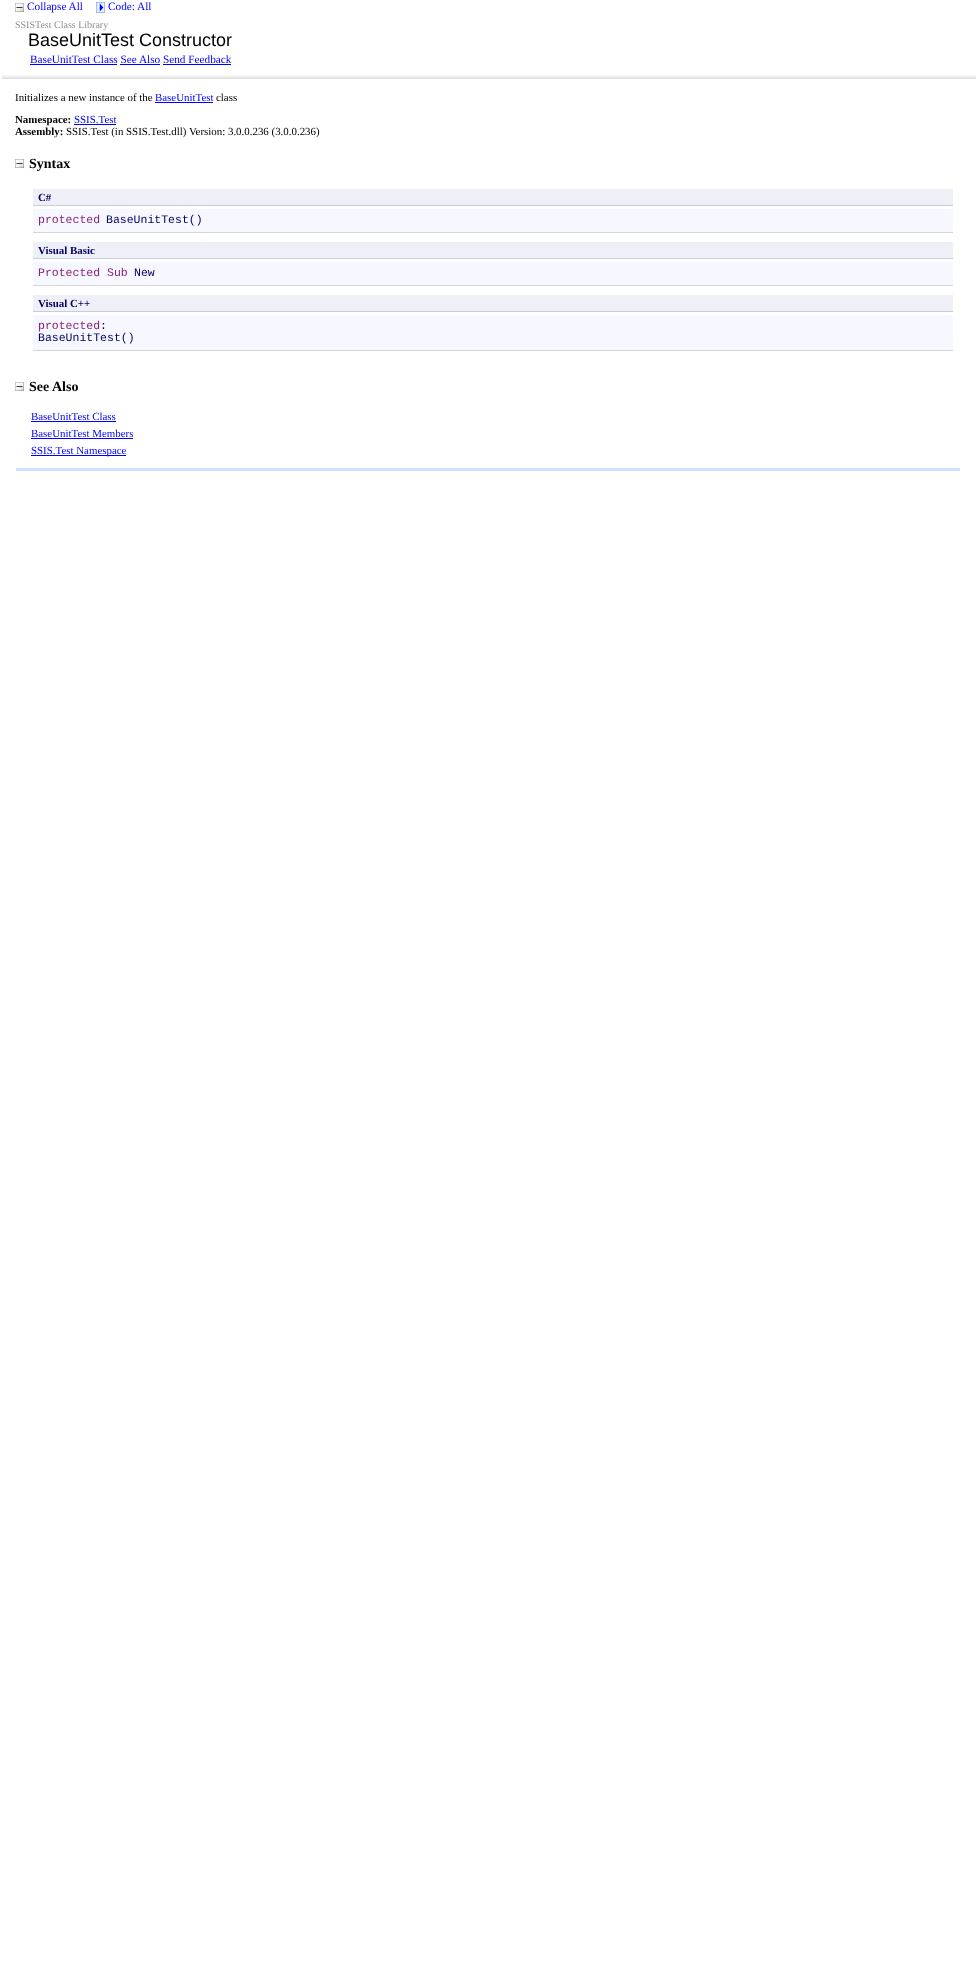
<!DOCTYPE html>
<meta charset="utf-8">
<style>body { margin: 0 } canvas { display: block }</style>
<canvas id="canvas" width="978" height="1964"></canvas>
<script type="module">
  const canvas = document.getElementById("canvas");
  const g = canvas.getContext("2d");
  g.miterLimit = 4;
  g.fontKerning = "normal";
  function drawText(s, x, y, [font, color]) {
    g.font = font;
    g.fillStyle = color;
    g.fillText(s, x, y);
  }
  function fillBox(x, y, w, h, color) {
    g.fillStyle = color;
    g.fillRect(x, y, w, h);
  }
  async function drawPicture(src, x, y, w, h) {
    const img = new Image();
    img.src = src;
    await img.decode();
    g.drawImage(img, x, y, w, h);
  }

  const s1 = ["11.25px Liberation Serif", "#0000FF"];
  const s2 = ["10px Liberation Serif", "#8C8C8C"];
  const s3 = ["18px Liberation Sans", "#000000"];
  const s4 = ["10.9px Liberation Serif", "#000000"];
  const s5 = ["10.9px Liberation Serif", "#0000FF"];
  const s6 = ["bold 10.9px Liberation Serif", "#000000"];
  const s7 = ["bold 14px Liberation Serif", "#000000"];
  const s8 = ["bold 10.9px Liberation Serif", "#000066"];
  const s9 = ["11.5px Liberation Mono", "#871F78"];
  const s10 = ["11.5px Liberation Mono", "#000066"];

  fillBox(0, 0, 978, 1964, "#FFFFFF");
  await drawPicture("pic1.png", 15, 3, 9, 9);
  drawText("Collapse All", 27, 10, s1);
  await drawPicture("pic2.png", 96, 2, 9, 11);
  drawText("Code: All", 108, 10, s1);
  drawText("SSISTest Class Library", 15, 28, s2);
  drawText("BaseUnitTest Constructor", 28, 46, s3);
  drawText("BaseUnitTest Class See Also Send Feedback", 30, 63, s1);
  fillBox(30, 64, 87, 1, "#0000FF");
  fillBox(120, 64, 40, 1, "#0000FF");
  fillBox(163, 64, 68, 1, "#0000FF");
  await drawPicture("pic3.png", 2, 75, 974, 4);
  drawText("Initializes a new instance of the", 15, 101, s4);
  drawText("BaseUnitTest", 155, 101, s5);
  fillBox(155, 102, 58, 1, "#0000FF");
  drawText("class", 216, 101, s4);
  drawText("Namespace:", 15, 123, s6);
  drawText("SSIS.Test", 74, 123, s5);
  fillBox(74, 124, 42, 1, "#0000FF");
  drawText("Assembly:", 15, 135, s6);
  drawText("SSIS.Test (in SSIS.Test.dll) Version: 3.0.0.236 (3.0.0.236)", 66, 135, s4);
  await drawPicture("pic1.png", 15, 159, 9, 9);
  drawText("Syntax", 29, 168, s7);
  fillBox(33, 189, 920, 16, "#EFEFF7");
  fillBox(33, 205, 920, 1, "#C8CDDE");
  drawText("C#", 38, 201, s8);
  fillBox(33, 209, 920, 23, "#F7F7FF");
  fillBox(33, 232, 920, 1, "#D5D5D3");
  drawText("protected", 38, 223, s9);
  drawText("BaseUnitTest()", 106, 223, s10);
  fillBox(33, 242, 920, 16, "#EFEFF7");
  fillBox(33, 258, 920, 1, "#C8CDDE");
  drawText("Visual Basic", 38, 254, s8);
  fillBox(33, 262, 920, 23, "#F7F7FF");
  fillBox(33, 285, 920, 1, "#D5D5D3");
  drawText("Protected Sub", 38, 276, s9);
  drawText("New", 134, 276, s10);
  fillBox(33, 295, 920, 16, "#EFEFF7");
  fillBox(33, 311, 920, 1, "#C8CDDE");
  drawText("Visual C++", 38, 307, s8);
  fillBox(33, 315, 920, 35, "#F7F7FF");
  fillBox(33, 350, 920, 1, "#D5D5D3");
  drawText("protected", 38, 329, s9);
  drawText(":", 100, 329, s10);
  drawText("BaseUnitTest()", 38, 341, s10);
  await drawPicture("pic1.png", 15, 382, 9, 9);
  drawText("See Also", 29, 391, s7);
  drawText("BaseUnitTest Class", 31, 420, s5);
  fillBox(31, 421, 85, 1, "#0000FF");
  drawText("BaseUnitTest Members", 31, 437, s5);
  fillBox(31, 438, 102, 1, "#0000FF");
  fillBox(31, 455, 95, 1, "#0000FF");
  drawText("SSIS.Test Namespace", 31, 454, s5);
  fillBox(16, 468, 944, 3, "#D4DFFF");
</script>
